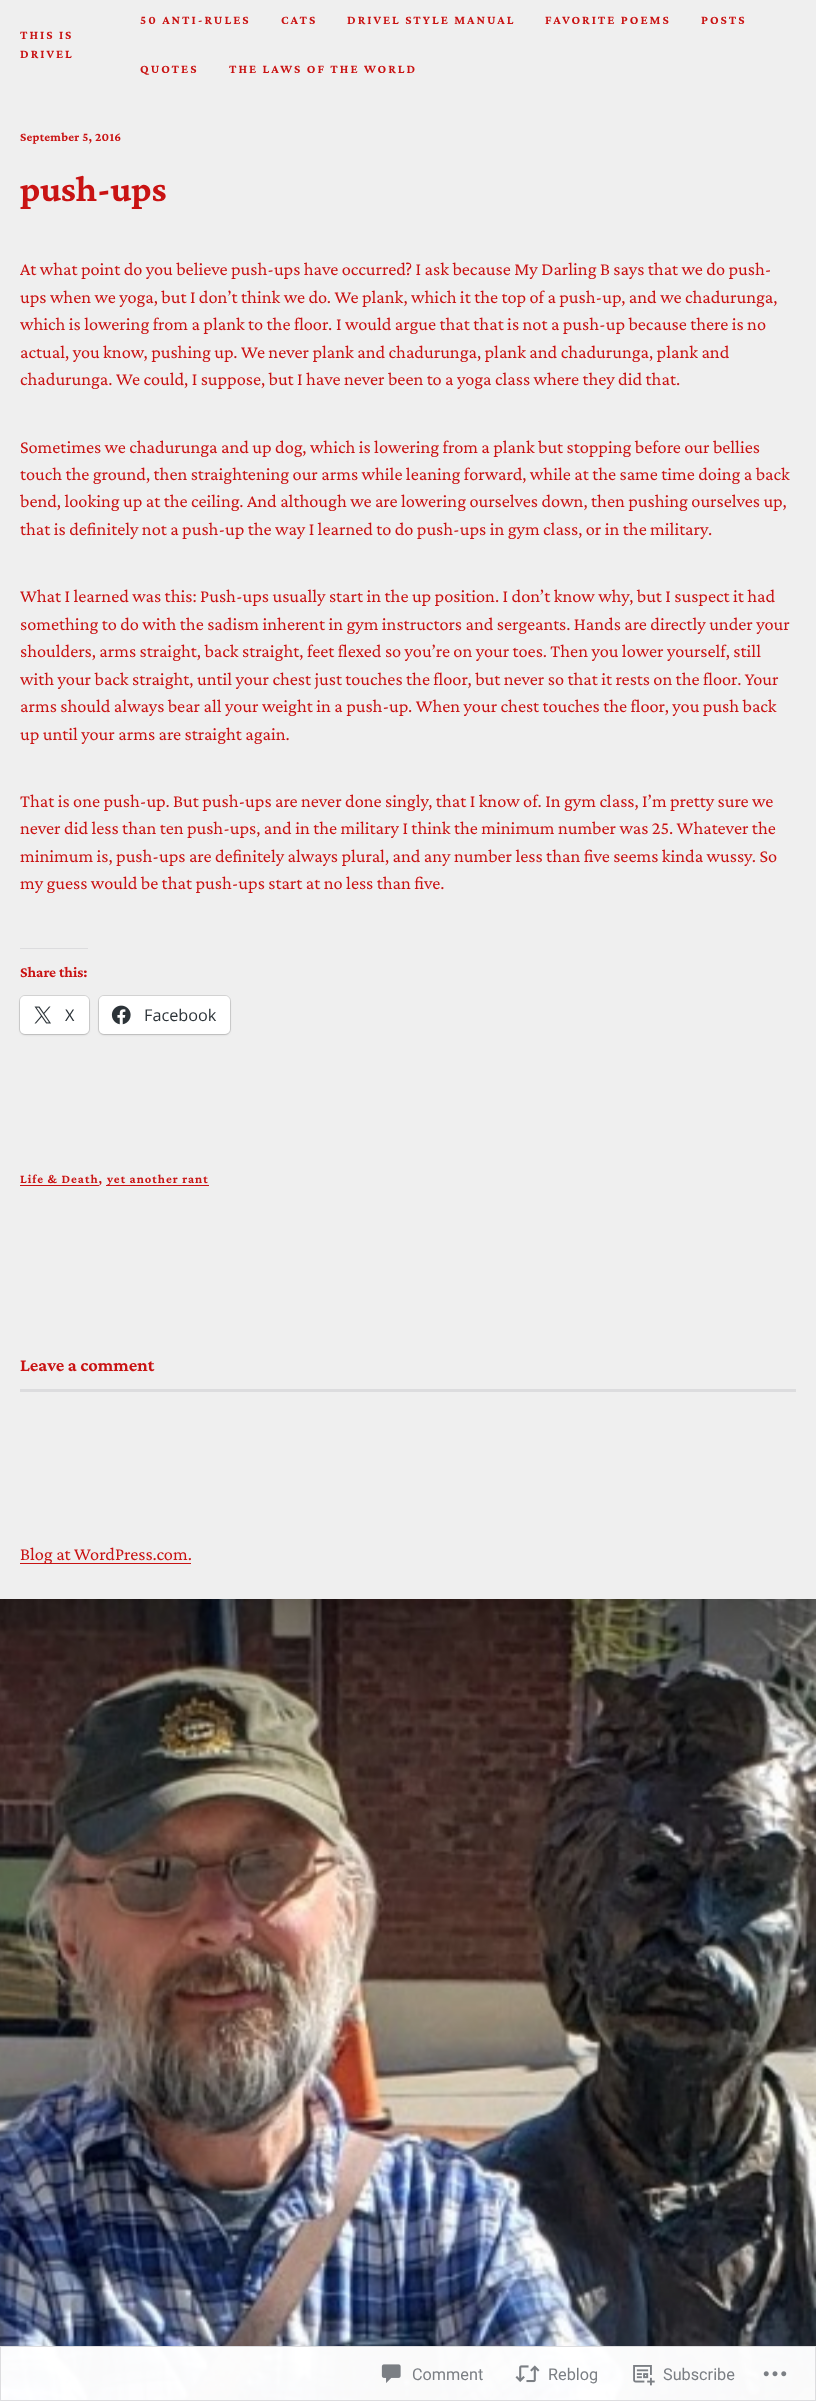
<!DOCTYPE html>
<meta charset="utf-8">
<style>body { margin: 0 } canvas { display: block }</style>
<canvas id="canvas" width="816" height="2401"></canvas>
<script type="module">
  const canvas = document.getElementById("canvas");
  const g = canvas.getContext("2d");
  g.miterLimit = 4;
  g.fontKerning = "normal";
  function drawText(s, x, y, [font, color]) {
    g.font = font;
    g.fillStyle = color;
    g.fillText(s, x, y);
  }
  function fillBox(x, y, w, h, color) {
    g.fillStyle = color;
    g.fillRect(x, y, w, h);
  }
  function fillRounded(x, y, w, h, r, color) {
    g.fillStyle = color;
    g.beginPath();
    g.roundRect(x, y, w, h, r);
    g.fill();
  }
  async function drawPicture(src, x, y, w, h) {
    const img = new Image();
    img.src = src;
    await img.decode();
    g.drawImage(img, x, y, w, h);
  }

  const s1 = ["bold 12.5px Crimson Pro", "#C91313"];
  const s2 = ["bold 37px Crimson Pro", "#C91313"];
  const s3 = ["18.3px Crimson Pro", "#C91313"];
  const s4 = ["bold 15px Crimson Pro", "#C91313"];
  const s5 = ["16.25px Open Sans", "#2C3338"];
  const s6 = ["bold 18.3px Crimson Pro", "#C91313"];
  const s7 = ["16.25px Roboto", "#7B7F84"];

  fillBox(0, 0, 816, 2401, "#EFEFEF");
  g.letterSpacing = "2px";
  drawText("THIS IS", 20, 39, s1);
  drawText("DRIVEL", 20, 58, s1);
  drawText("50 ANTI-RULES", 140, 24, s1);
  drawText("CATS", 281, 24, s1);
  drawText("DRIVEL STYLE MANUAL", 347, 24, s1);
  drawText("FAVORITE POEMS", 545, 24, s1);
  drawText("POSTS", 701, 24, s1);
  drawText("QUOTES", 140, 73, s1);
  drawText("THE LAWS OF THE WORLD", 229, 73, s1);
  g.letterSpacing = "0.25px";
  drawText("September 5, 2016", 20, 141, s1);
  g.letterSpacing = "-0.25px";
  drawText("push-ups", 20, 201, s2);
  g.letterSpacing = "0px";
  drawText("At what point do you believe push-ups have occurred? I ask because My Darling B says that we do push-", 20, 275, s3);
  drawText("ups when we yoga, but I don’t think we do. We plank, which it the top of a push-up, and we chadurunga,", 20, 303, s3);
  drawText("which is lowering from a plank to the floor.", 20, 330, s3);
  drawText("I would argue that that is not a push-up because there is no", 336, 330, s3);
  drawText("actual, you know, pushing up. We never plank and chadurunga, plank and chadurunga, plank and", 20, 358, s3);
  drawText("chadurunga. We could, I suppose, but I have never been to a yoga class where they did that.", 20, 385, s3);
  drawText("Sometimes we chadurunga and up dog, which is lowering from a plank but stopping before our bellies", 20, 453, s3);
  drawText("touch the ground, then straightening our arms while leaning forward, while at the same time doing a back", 20, 480, s3);
  drawText("bend, looking up at the ceiling. And although we are lowering ourselves down, then pushing ourselves up,", 20, 507, s3);
  drawText("that is definitely not a push-up the way I learned to do push-ups in gym class, or in the military.", 20, 535, s3);
  drawText("What I learned was this: Push-ups usually start in the up position. I don’t know why, but I suspect it had", 20, 602, s3);
  drawText("something to do with the sadism inherent in gym instructors and sergeants. Hands are directly under your", 20, 630, s3);
  drawText("shoulders, arms straight, back straight, feet flexed so you’re on your toes. Then you lower yourself, still", 20, 657, s3);
  drawText("with your back straight, until your chest just touches the floor, but never so that it rests on the floor. Your", 20, 685, s3);
  drawText("arms should always bear all your weight in a push-up. When your chest touches the floor, you push back", 20, 712, s3);
  drawText("up until your arms are straight again.", 20, 740, s3);
  drawText("That is one push-up. But push-ups are never done singly, that I know of. In gym class, I’m pretty sure we", 20, 807, s3);
  drawText("never did less than ten push-ups, and in the military I think the minimum number was 25. Whatever the", 20, 834, s3);
  drawText("minimum is, push-ups are definitely always plural, and any number less than five seems kinda wussy. So", 20, 862, s3);
  drawText("my guess would be that push-ups start at no less than five.", 20, 889, s3);
  fillBox(20, 948, 68, 1, "#DCDCDE");
  drawText("Share this:", 20, 977, s4);
  g.beginPath();
  g.roundRect(19.5, 995.5, 70, 39, 5.5);
  g.strokeStyle = "#D2D2D2";
  g.stroke();
  g.fillStyle = "rgba(0, 0, 0, 0.12)";
  g.filter = "blur(1px)";
  g.beginPath();
  g.roundRect(20, 998, 69, 37, 5);
  g.fill();
  g.filter = "none";
  fillRounded(20, 996, 69, 38, 5, "#FFFFFF");
  await drawPicture("pic1.png", 34, 1006, 17, 18);
  drawText("X", 65, 1021, s5);
  g.beginPath();
  g.roundRect(98.5, 995.5, 132, 39, 5.5);
  g.stroke();
  g.fillStyle = "rgba(0, 0, 0, 0.12)";
  g.filter = "blur(1px)";
  g.beginPath();
  g.roundRect(99, 998, 131, 37, 5);
  g.fill();
  g.filter = "none";
  fillRounded(99, 996, 131, 38, 5, "#FFFFFF");
  await drawPicture("pic2.png", 111, 1005, 20, 20);
  drawText("Facebook", 144, 1021, s5);
  fillBox(20, 1185, 79, 1, "#C91313");
  g.letterSpacing = "1px";
  drawText("Life & Death,", 20, 1183, s1);
  fillBox(106, 1185, 103, 1, "#C91313");
  drawText("yet another rant", 107, 1183, s1);
  g.letterSpacing = "0px";
  drawText("Leave a comment", 20, 1371, s6);
  fillBox(20, 1389, 776, 3, "#DCDCDE");
  fillBox(20, 1563, 171, 1, "#C91313");
  drawText("Blog at WordPress.com.", 20, 1560, s3);
  await drawPicture("pic3.png", 0, 1599, 816, 802);
  fillBox(0, 2346, 816, 55, "rgba(255, 255, 255, 0.98)");
  g.strokeStyle = "rgba(220, 220, 222, 0.98)";
  g.strokeRect(0.5, 2346.5, 815, 54);
  await drawPicture("pic4.png", 381, 2364, 20, 19);
  drawText("Comment", 412, 2380, s7);
  await drawPicture("pic5.png", 515, 2365, 25, 18);
  drawText("Reblog", 548, 2380, s7);
  await drawPicture("pic6.png", 633, 2365, 22, 21);
  drawText("Subscribe", 663, 2380, s7);
  await drawPicture("pic7.png", 763, 2371, 24, 6);
</script>
